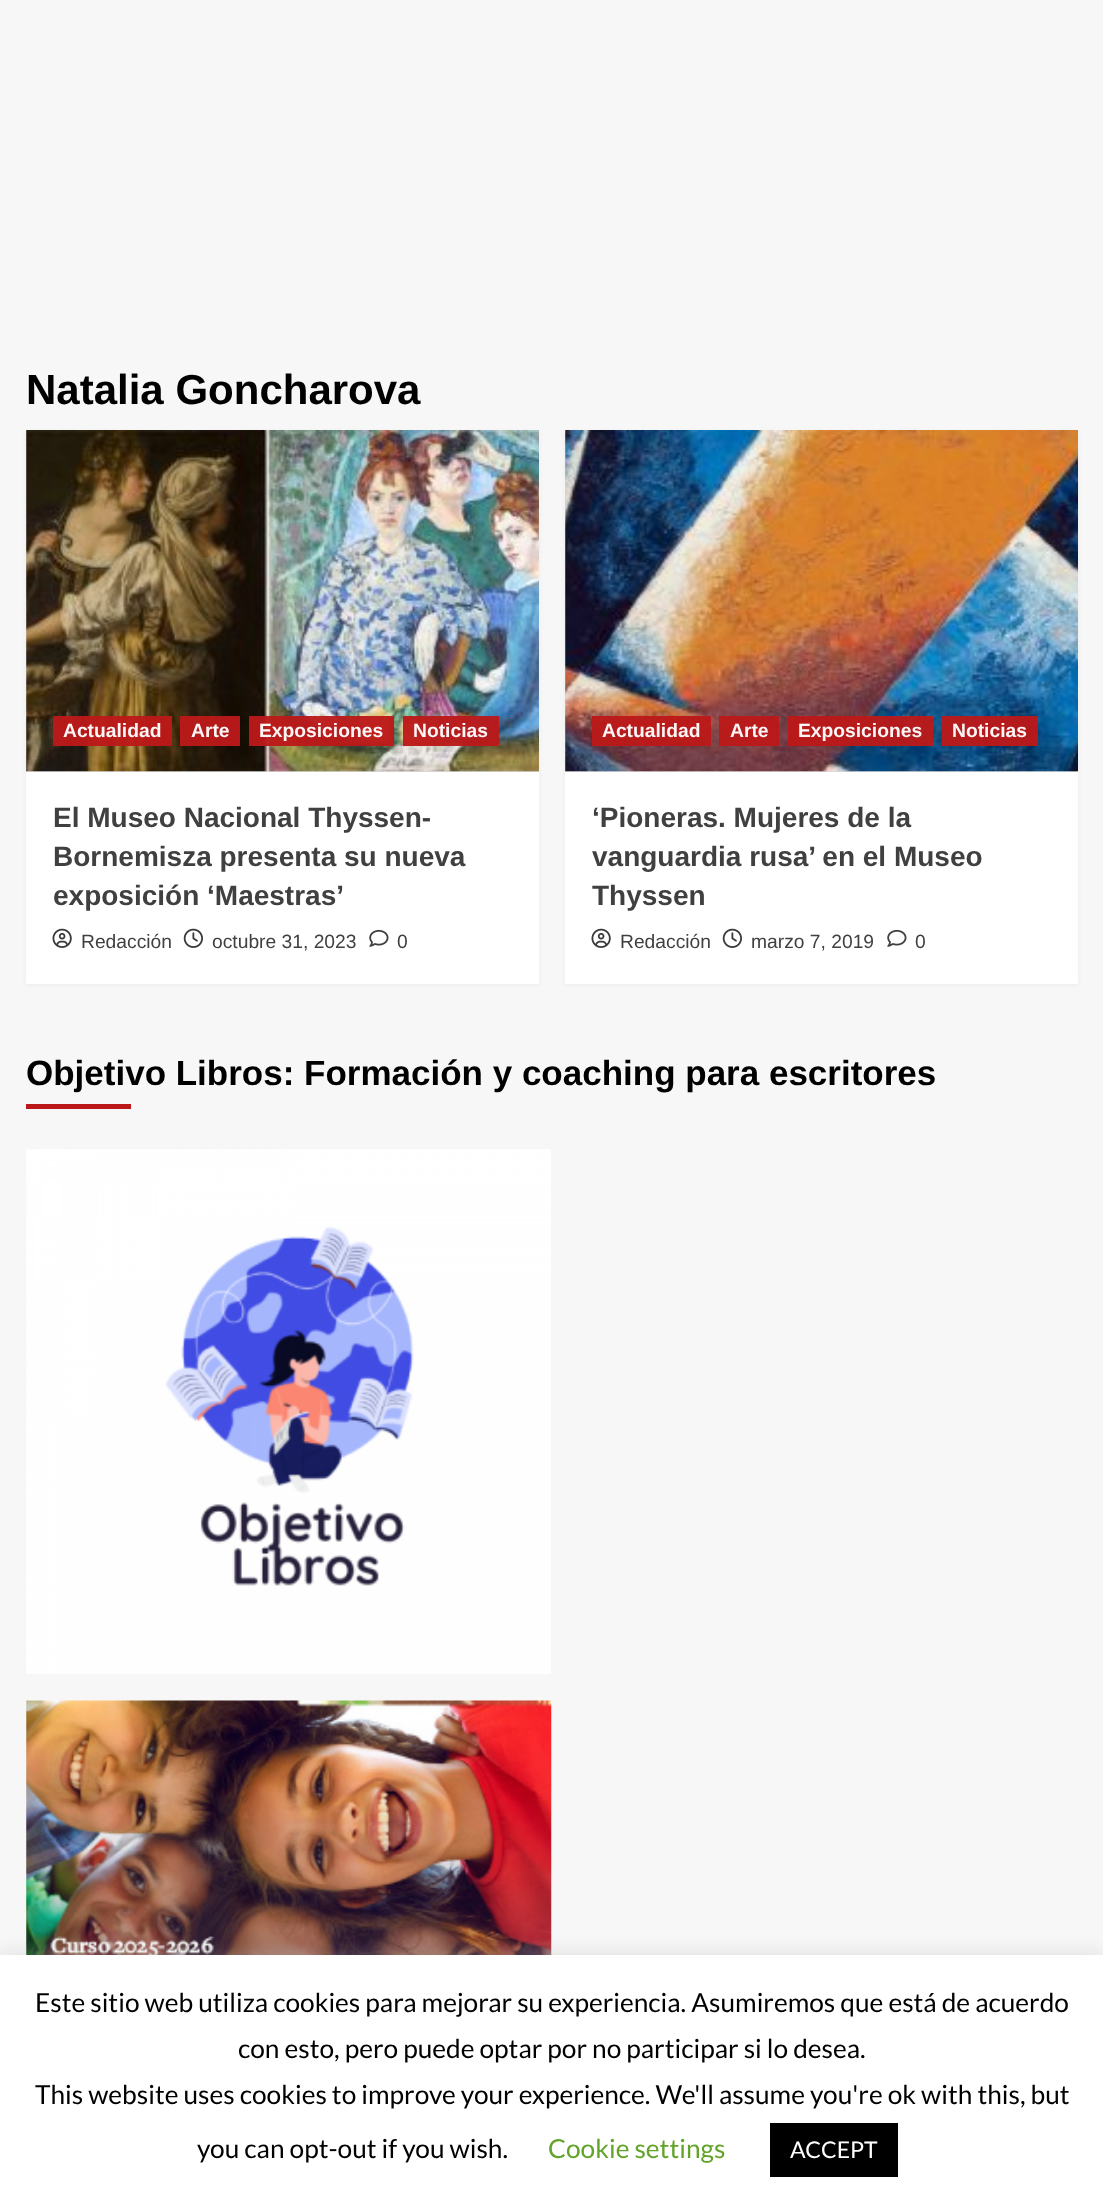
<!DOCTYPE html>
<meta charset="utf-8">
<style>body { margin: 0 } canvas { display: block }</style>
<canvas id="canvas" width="1103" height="2206"></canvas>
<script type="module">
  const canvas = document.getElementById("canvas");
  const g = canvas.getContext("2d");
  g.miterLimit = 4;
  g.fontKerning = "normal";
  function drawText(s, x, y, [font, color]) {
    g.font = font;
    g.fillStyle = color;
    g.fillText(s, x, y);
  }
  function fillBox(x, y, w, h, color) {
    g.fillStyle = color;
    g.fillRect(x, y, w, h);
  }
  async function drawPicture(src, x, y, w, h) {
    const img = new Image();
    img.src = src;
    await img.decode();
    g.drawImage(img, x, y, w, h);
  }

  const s1 = ["bold 42px Liberation Sans", "#000000"];
  const s2 = ["bold 19.25px Liberation Sans", "#FCF6F6"];
  const s3 = ["bold 28px Liberation Sans", "#404040"];
  const s4 = ["19.25px Liberation Sans", "#404040"];
  const s5 = ["bold 35px Liberation Sans", "#000000"];
  const s6 = ["26.25px Lato", "#000000"];
  const s7 = ["26.25px Lato", "#62A329"];
  const s8 = ["23px Lato", "#FFFFFF"];

  fillBox(0, 0, 1103, 2206, "#F7F7F7");
  drawText("Natalia Goncharova", 26, 404, s1);
  g.fillStyle = "rgba(0, 0, 0, 0.05)";
  g.filter = "blur(2px)";
  g.beginPath();
  g.rect(26, 432, 513, 553);
  g.fill();
  g.filter = "none";
  fillBox(26, 772, 513, 212, "#FFFFFF");
  fillBox(26, 431, 513, 341, "#D8D8D8");
  await drawPicture("pic1.png", 26, 430, 513, 342);
  fillBox(53, 716, 119, 30, "rgba(187, 25, 25, 0.96)");
  drawText("Actualidad", 63, 737, s2);
  fillBox(180, 716, 60, 30, "rgba(187, 25, 25, 0.96)");
  drawText("Arte", 191, 737, s2);
  fillBox(249, 716, 145, 30, "rgba(187, 25, 25, 0.96)");
  drawText("Exposiciones", 259, 737, s2);
  fillBox(403, 716, 96, 30, "rgba(187, 25, 25, 0.96)");
  drawText("Noticias", 413, 737, s2);
  drawText("El Museo Nacional Thyssen-", 53, 827, s3);
  drawText("Bornemisza presenta su nueva", 53, 866, s3);
  drawText("exposición ‘Maestras’", 53, 905, s3);
  await drawPicture("pic2.png", 52, 928, 20, 20);
  drawText("Redacción", 81, 948, s4);
  await drawPicture("pic3.png", 183, 928, 20, 20);
  drawText("octubre 31, 2023", 212, 948, s4);
  await drawPicture("pic4.png", 369, 929, 20, 18);
  drawText("0", 397, 948, s4);
  g.fillStyle = "rgba(0, 0, 0, 0.05)";
  g.filter = "blur(2px)";
  g.beginPath();
  g.rect(565, 432, 513, 553);
  g.fill();
  g.filter = "none";
  fillBox(565, 772, 513, 212, "#FFFFFF");
  fillBox(565, 431, 513, 341, "#D8D8D8");
  await drawPicture("pic5.png", 565, 430, 513, 342);
  fillBox(592, 716, 119, 30, "rgba(187, 25, 25, 0.96)");
  drawText("Actualidad", 602, 737, s2);
  fillBox(719, 716, 60, 30, "rgba(187, 25, 25, 0.96)");
  drawText("Arte", 730, 737, s2);
  fillBox(788, 716, 145, 30, "rgba(187, 25, 25, 0.96)");
  drawText("Exposiciones", 798, 737, s2);
  fillBox(942, 716, 96, 30, "rgba(187, 25, 25, 0.96)");
  drawText("Noticias", 952, 737, s2);
  drawText("‘Pioneras. Mujeres de la", 592, 827, s3);
  drawText("vanguardia rusa’ en el Museo", 592, 866, s3);
  drawText("Thyssen", 592, 905, s3);
  await drawPicture("pic2.png", 591, 928, 20, 20);
  drawText("Redacción", 620, 948, s4);
  await drawPicture("pic3.png", 722, 928, 20, 20);
  drawText("marzo 7, 2019", 751, 948, s4);
  await drawPicture("pic4.png", 887, 929, 20, 18);
  drawText("0", 915, 948, s4);
  drawText("Objetivo Libros: Formación y coaching para escritores", 26, 1085, s5);
  fillBox(26, 1104, 105, 5, "#BB1919");
  await drawPicture("pic6.png", 26, 1149, 525, 525);
  await drawPicture("pic7.png", 26, 1700, 526, 255);
  g.fillStyle = "rgba(172, 171, 171, 0.3)";
  g.filter = "blur(9px)";
  g.beginPath();
  g.rect(0, 1953, 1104, 252);
  g.fill();
  g.filter = "none";
  fillBox(0, 1955, 1103, 251, "#FFFFFF");
  drawText("Este sitio web utiliza cookies para mejorar su experiencia. Asumiremos que está de acuerdo", 35, 2012, s6);
  drawText("con esto, pero puede optar por no participar si lo desea.", 238, 2058, s6);
  drawText("This website uses cookies to improve your experience. We'll assume you're ok with this, but", 35, 2104, s6);
  drawText("you can opt-out if you wish.", 197, 2158, s6);
  drawText("Cookie settings", 548, 2158, s7);
  fillBox(770, 2123, 128, 54, "#000000");
  drawText("ACCEPT", 790, 2158, s8);
</script>
